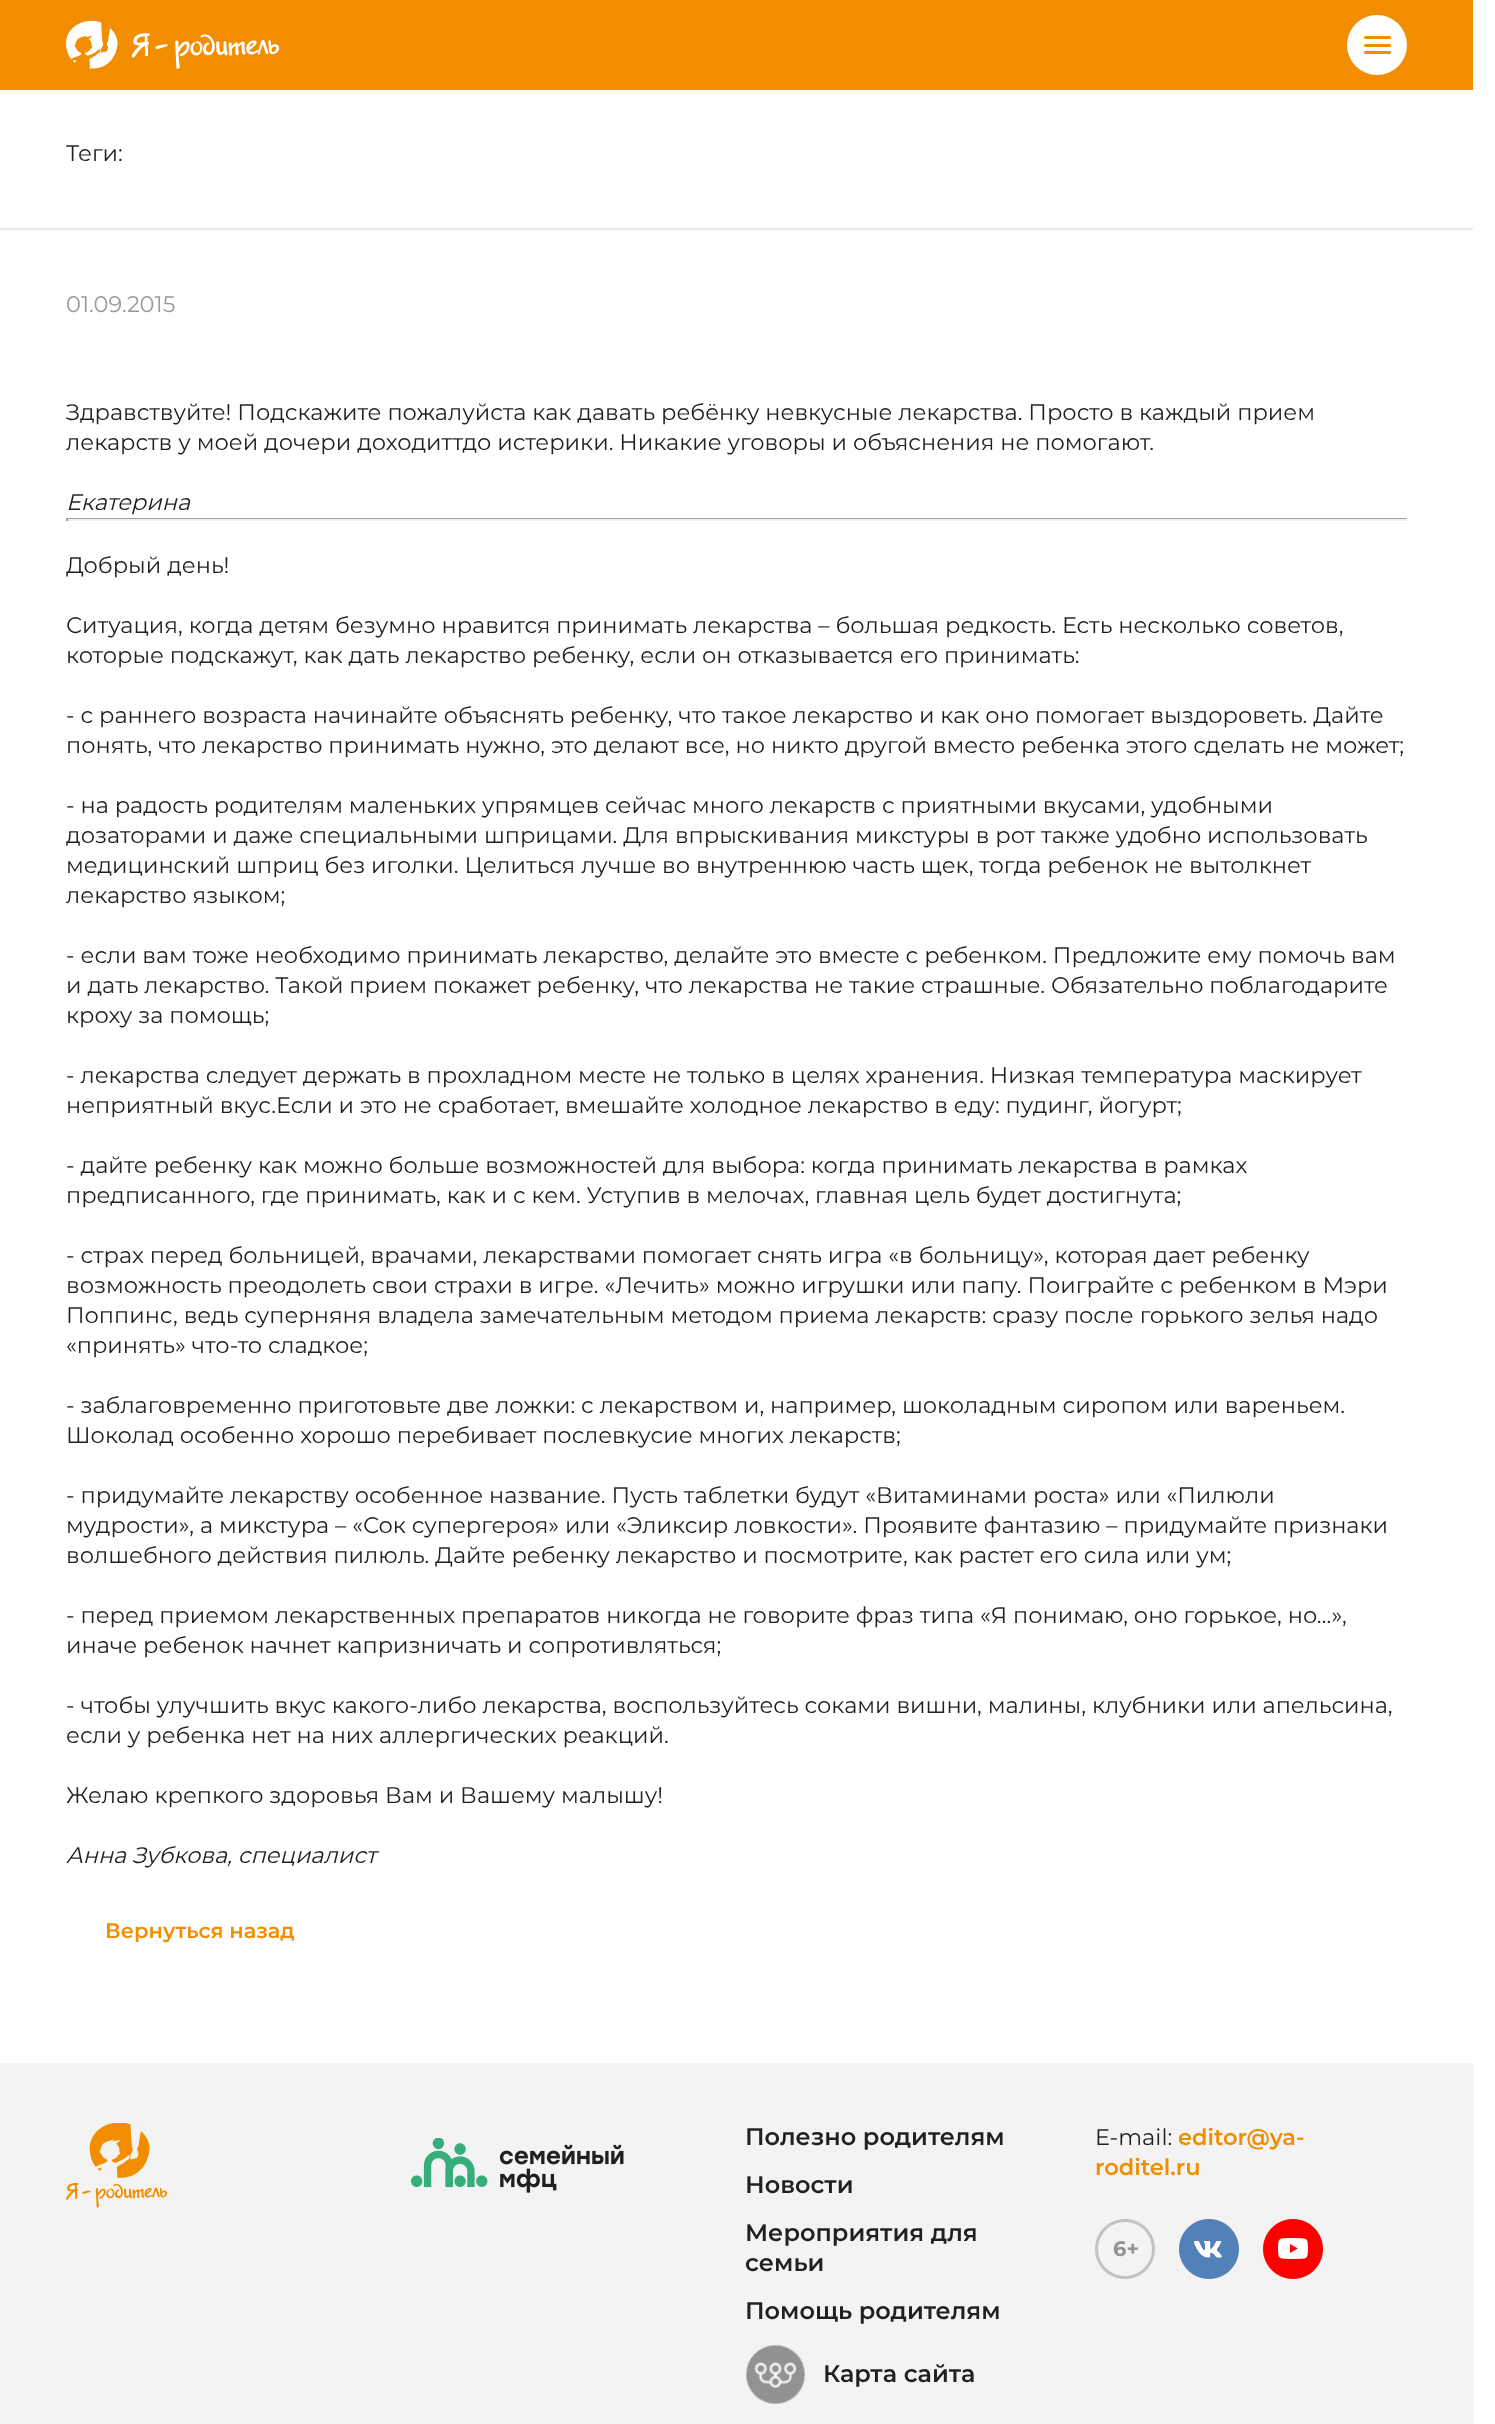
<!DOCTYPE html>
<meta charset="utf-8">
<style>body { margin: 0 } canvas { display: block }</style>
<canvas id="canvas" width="1495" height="2424"></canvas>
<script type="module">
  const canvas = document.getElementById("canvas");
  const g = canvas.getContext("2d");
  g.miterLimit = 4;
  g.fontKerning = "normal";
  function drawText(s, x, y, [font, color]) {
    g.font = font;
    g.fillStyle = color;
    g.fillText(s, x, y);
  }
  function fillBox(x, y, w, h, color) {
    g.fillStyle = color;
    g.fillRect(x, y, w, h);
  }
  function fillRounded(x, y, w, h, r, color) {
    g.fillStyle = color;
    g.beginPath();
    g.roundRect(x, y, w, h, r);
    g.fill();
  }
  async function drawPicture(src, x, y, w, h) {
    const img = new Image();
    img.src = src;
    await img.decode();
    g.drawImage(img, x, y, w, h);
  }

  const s1 = ["22.5px Montserrat", "#211F1F"];
  const s2 = ["22.5px Montserrat", "#999999"];
  const s3 = ["italic 22.5px Montserrat", "#211F1F"];
  const s4 = ["600 21px Montserrat", "#F28D00"];
  const s5 = ["600 24px Montserrat", "#211F1F"];
  const s6 = ["600 22.5px Montserrat", "#F28D00"];

  fillBox(0, 0, 1495, 2424, "#FFFFFF");
  fillBox(0, 0, 1473, 90, "#F28D00");
  await drawPicture("pic1.png", 66, 20, 214, 49);
  g.fillStyle = "#FFFFFF";
  g.beginPath();
  g.arc(1377, 45, 30, 0, Math.PI * 2);
  g.fill();
  fillRounded(1364, 36, 27, 3, 1.5, "#F28D00");
  fillRounded(1364, 44, 27, 3, 1.5, "#F28D00");
  fillRounded(1364, 51, 27, 3, 1.5, "#F28D00");
  fillBox(0, 228, 1473, 2, "#E7E8E9");
  drawText("Теги:", 66, 161, s1);
  drawText("01.09.2015", 66, 312, s2);
  drawText("Здравствуйте! Подскажите пожалуйста как давать ребёнку невкусные лекарства. Просто в каждый прием", 66, 420, s1);
  drawText("лекарств у моей дочери доходиттдо истерики. Никакие уговоры и объяснения не помогают.", 66, 450, s1);
  drawText("Екатерина", 66, 510, s3);
  fillBox(66, 518, 1341, 1, "#9F9F9F");
  fillBox(1406, 518, 2, 3, "#EEEEEE");
  fillBox(66, 519, 1341, 2, "#EEEEEE");
  fillBox(66, 518, 2, 3, "#9F9F9F");
  drawText("Добрый день!", 66, 573, s1);
  drawText("Ситуация, когда детям безумно нравится принимать лекарства – большая редкость. Есть несколько советов,", 66, 633, s1);
  drawText("которые подскажут, как дать лекарство ребенку, если он отказывается его принимать:", 66, 663, s1);
  drawText("- с раннего возраста начинайте объяснять ребенку, что такое лекарство и как оно помогает выздороветь. Дайте", 66, 723, s1);
  drawText("понять, что лекарство принимать нужно, это делают все, но никто другой вместо ребенка этого сделать не может;", 66, 753, s1);
  drawText("- на радость родителям маленьких упрямцев сейчас много лекарств с приятными вкусами, удобными", 66, 813, s1);
  drawText("дозаторами и даже специальными шприцами. Для впрыскивания микстуры в рот также удобно использовать", 66, 843, s1);
  drawText("медицинский шприц без иголки. Целиться лучше во внутреннюю часть щек, тогда ребенок не вытолкнет", 66, 873, s1);
  drawText("лекарство языком;", 66, 903, s1);
  drawText("- если вам тоже необходимо принимать лекарство, делайте это вместе с ребенком. Предложите ему помочь вам", 66, 963, s1);
  drawText("и дать лекарство. Такой прием покажет ребенку, что лекарства не такие страшные. Обязательно поблагодарите", 66, 993, s1);
  drawText("кроху за помощь;", 66, 1023, s1);
  drawText("- лекарства следует держать в прохладном месте не только в целях хранения. Низкая температура маскирует", 66, 1083, s1);
  drawText("неприятный вкус.Если и это не сработает, вмешайте холодное лекарство в еду: пудинг, йогурт;", 66, 1113, s1);
  drawText("- дайте ребенку как можно больше возможностей для выбора: когда принимать лекарства в рамках", 66, 1173, s1);
  drawText("предписанного, где принимать, как и с кем. Уступив в мелочах, главная цель будет достигнута;", 66, 1203, s1);
  drawText("- страх перед больницей, врачами, лекарствами помогает снять игра «в больницу», которая дает ребенку", 66, 1263, s1);
  drawText("возможность преодолеть свои страхи в игре. «Лечить» можно игрушки или папу. Поиграйте с ребенком в Мэри", 66, 1293, s1);
  drawText("Поппинс, ведь суперняня владела замечательным методом приема лекарств: сразу после горького зелья надо", 66, 1323, s1);
  drawText("«принять» что-то сладкое;", 66, 1353, s1);
  drawText("- заблаговременно приготовьте две ложки: с лекарством и, например, шоколадным сиропом или вареньем.", 66, 1413, s1);
  drawText("Шоколад особенно хорошо перебивает послевкусие многих лекарств;", 66, 1443, s1);
  drawText("- придумайте лекарству особенное название. Пусть таблетки будут «Витаминами роста» или «Пилюли", 66, 1503, s1);
  drawText("мудрости», а микстура – «Сок супергероя» или «Эликсир ловкости». Проявите фантазию – придумайте признаки", 66, 1533, s1);
  drawText("волшебного действия пилюль. Дайте ребенку лекарство и посмотрите, как растет его сила или ум;", 66, 1563, s1);
  drawText("- перед приемом лекарственных препаратов никогда не говорите фраз типа «Я понимаю, оно горькое, но…»,", 66, 1623, s1);
  drawText("иначе ребенок начнет капризничать и сопротивляться;", 66, 1653, s1);
  drawText("- чтобы улучшить вкус какого-либо лекарства, воспользуйтесь соками вишни, малины, клубники или апельсина,", 66, 1713, s1);
  drawText("если у ребенка нет на них аллергических реакций.", 66, 1743, s1);
  drawText("Желаю крепкого здоровья Вам и Вашему малышу!", 66, 1803, s1);
  drawText("Анна Зубкова, специалист", 66, 1863, s3);
  drawText("Вернуться назад", 105, 1938, s4);
  fillBox(0, 2063, 1473, 361, "#F3F3F3");
  await drawPicture("pic2.png", 66, 2123, 102, 85);
  await drawPicture("pic3.png", 411, 2138, 213, 55);
  drawText("Полезно родителям", 745, 2145, s5);
  drawText("Новости", 745, 2193, s5);
  drawText("Мероприятия для", 745, 2241, s5);
  drawText("семьи", 745, 2271, s5);
  drawText("Помощь родителям", 745, 2319, s5);
  await drawPicture("pic4.png", 745, 2344, 61, 61);
  drawText("Карта сайта", 823, 2382, s5);
  drawText("E-mail:", 1095, 2145, s1);
  drawText("editor@ya-", 1178, 2145, s6);
  drawText("roditel.ru", 1095, 2175, s6);
  await drawPicture("pic5.png", 1095, 2219, 60, 60);
  await drawPicture("pic6.png", 1179, 2219, 60, 60);
  await drawPicture("pic7.png", 1263, 2219, 60, 60);
</script>
